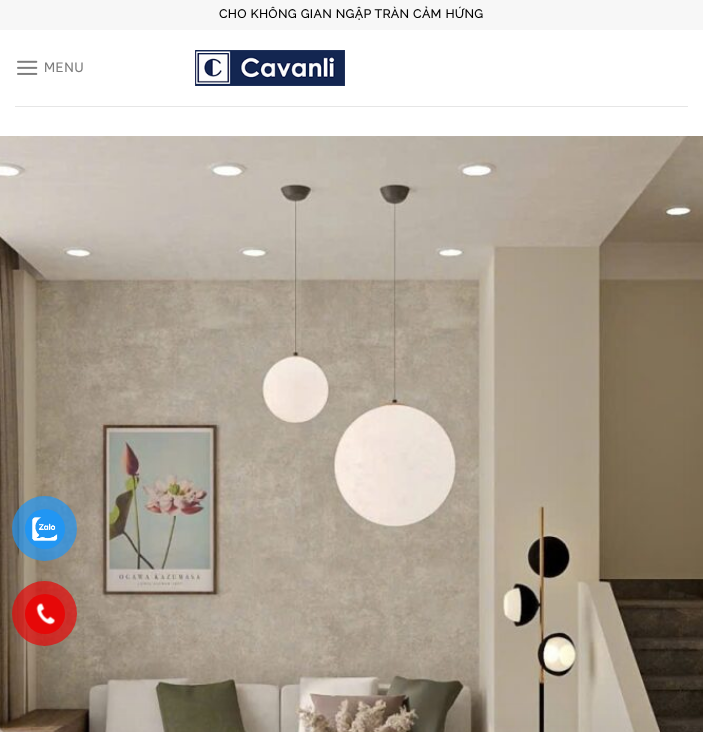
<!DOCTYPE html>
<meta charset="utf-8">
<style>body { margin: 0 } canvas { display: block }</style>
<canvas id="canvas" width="703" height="732"></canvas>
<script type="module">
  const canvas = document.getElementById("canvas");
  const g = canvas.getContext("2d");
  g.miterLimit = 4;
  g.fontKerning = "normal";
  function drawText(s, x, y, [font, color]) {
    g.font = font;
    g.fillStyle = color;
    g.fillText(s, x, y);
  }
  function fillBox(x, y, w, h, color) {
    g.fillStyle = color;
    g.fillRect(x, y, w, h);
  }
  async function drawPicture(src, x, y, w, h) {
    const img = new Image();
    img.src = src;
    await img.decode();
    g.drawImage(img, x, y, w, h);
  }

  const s1 = ["bold 12px Raleway", "#000000"];
  const s2 = ["13px Be Vietnam Pro", "#7D7D7D"];

  fillBox(0, 0, 703, 732, "#FFFFFF");
  fillBox(0, 0, 703, 30, "#F7F7F7");
  g.letterSpacing = "0.6px";
  drawText("CHO KHÔNG GIAN NGẬP TRÀN CẢM HỨNG", 219, 18, s1);
  await drawPicture("pic1.png", 17, 60, 21, 15);
  g.letterSpacing = "0.5px";
  drawText("MENU", 44, 72, s2);
  await drawPicture("pic2.png", 195, 50, 150, 36);
  fillBox(15, 106, 673, 1, "#E6E6E6");
  await drawPicture("pic3.png", 0, 136, 703, 596);
  g.fillStyle = "rgba(33, 150, 243, 0.7)";
  g.beginPath();
  g.arc(44.5, 528.5, 32.5, 0, Math.PI * 2);
  g.fill();
  g.fillStyle = "#2196F3";
  g.beginPath();
  g.arc(45, 529, 20, 0, Math.PI * 2);
  g.fill();
  await drawPicture("pic4.png", 32, 517, 26, 24);
  g.fillStyle = "rgba(230, 8, 8, 0.7)";
  g.beginPath();
  g.arc(44.5, 613.5, 32.5, 0, Math.PI * 2);
  g.fill();
  g.fillStyle = "#E60808";
  g.beginPath();
  g.arc(45, 614, 20, 0, Math.PI * 2);
  g.fill();
  await drawPicture("pic5.png", 36, 603, 19, 22);
</script>
